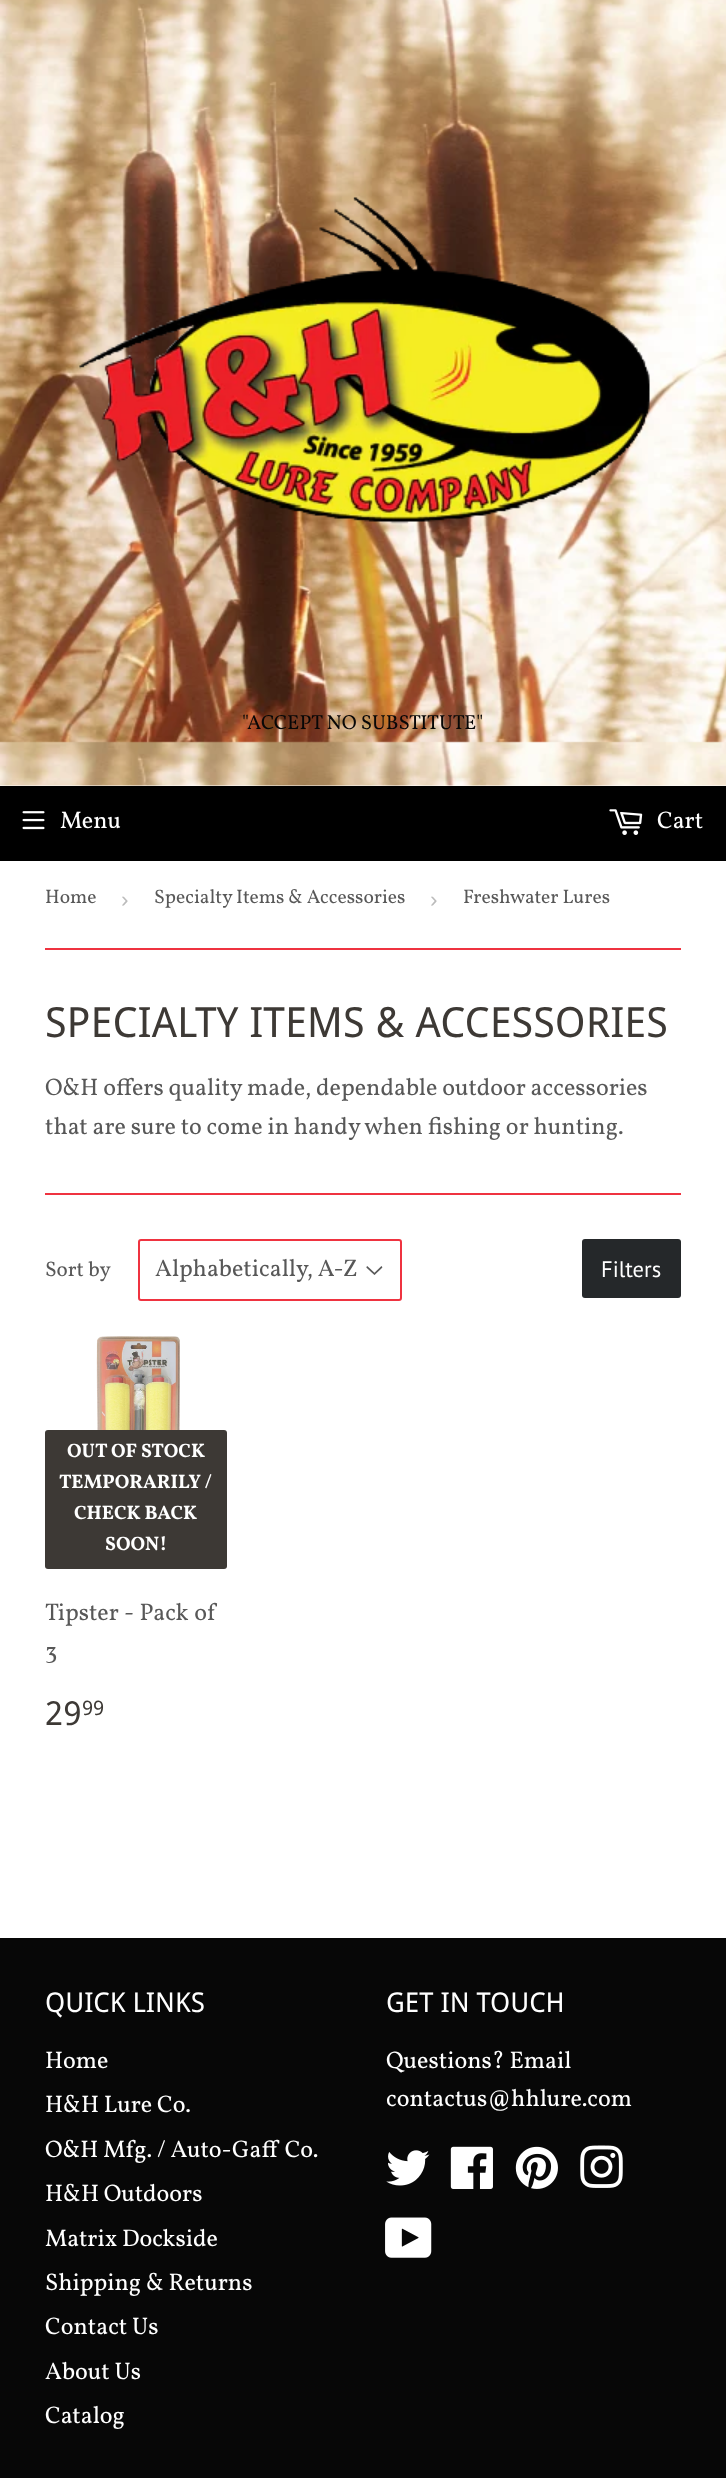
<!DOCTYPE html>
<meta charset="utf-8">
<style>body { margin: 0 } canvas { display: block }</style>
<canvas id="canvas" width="726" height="2478"></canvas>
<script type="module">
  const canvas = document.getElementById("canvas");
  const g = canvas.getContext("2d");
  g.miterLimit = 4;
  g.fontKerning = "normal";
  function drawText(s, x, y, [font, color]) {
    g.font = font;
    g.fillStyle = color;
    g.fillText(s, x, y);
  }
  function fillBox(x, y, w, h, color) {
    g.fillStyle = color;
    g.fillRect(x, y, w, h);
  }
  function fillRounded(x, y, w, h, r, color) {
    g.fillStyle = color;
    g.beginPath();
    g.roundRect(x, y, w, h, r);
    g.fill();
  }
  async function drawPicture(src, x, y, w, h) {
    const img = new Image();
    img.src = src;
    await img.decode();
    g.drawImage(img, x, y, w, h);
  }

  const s1 = ["20.4px Vollkorn", "#070707"];
  const s2 = ["24px Vollkorn", "#FFFFFF"];
  const s3 = ["19.5px Vollkorn", "#585858"];
  const s4 = ["22.5px Liberation Sans", "#BBBBBB"];
  const s5 = ["41.6px Droid Sans", "#3D3935"];
  const s6 = ["24px Vollkorn", "#585858"];
  const s7 = ["21px Vollkorn", "#585858"];
  const s8 = ["22.5px PT Sans", "#FFFFFF"];
  const s9 = ["bold 19.5px Vollkorn", "#FFFFFF"];
  const s10 = ["33px Droid Sans", "#3D3935"];
  const s11 = ["20px Droid Sans", "#3D3935"];
  const s12 = ["27.25px Droid Sans", "#FFFFFF"];

  fillBox(0, 0, 726, 2478, "#FFFFFF");
  await drawPicture("pic1.png", 0, 0, 726, 786);
  await drawPicture("pic2.png", 79, 197, 571, 327);
  drawText("\"ACCEPT NO SUBSTITUTE\"", 242, 729, s1);
  fillBox(0, 786, 726, 75, "#000000");
  await drawPicture("pic3.png", 22, 811, 23, 19);
  drawText("Menu", 60, 828, s2);
  await drawPicture("pic4.png", 609, 809, 34, 26);
  drawText("Cart", 657, 828, s2);
  fillBox(45, 948, 636, 2, "#EF3340");
  drawText("Home", 45, 903, s3);
  drawText("›", 121, 907, s4);
  drawText("Specialty Items & Accessories", 154, 903, s3);
  drawText("›", 430, 907, s4);
  drawText("Freshwater Lures", 463, 903, s3);
  drawText("SPECIALTY ITEMS & ACCESSORIES", 45, 1037, s5);
  drawText("O&H offers quality made, dependable outdoor accessories", 45, 1095, s6);
  drawText("that are sure to come in handy when fishing or hunting.", 45, 1134, s6);
  fillBox(45, 1193, 636, 2, "#EF3340");
  drawText("Sort by", 45, 1276, s7);
  await drawPicture("pic5.png", 366, 1266, 17, 9);
  g.beginPath();
  g.roundRect(139, 1240, 262, 60, 2);
  g.strokeStyle = "#EF3340";
  g.lineWidth = 2;
  g.stroke();
  drawText("Alphabetically, A-Z", 155, 1276, s6);
  fillRounded(582, 1239, 99, 59, 3, "#25282A");
  drawText("Filters", 601, 1277, s8);
  await drawPicture("pic6.png", 96, 1336, 84, 94);
  fillRounded(45, 1430, 182, 139, 3, "#3D3935");
  drawText("OUT OF STOCK", 67, 1457, s9);
  drawText("TEMPORARILY /", 59, 1488, s9);
  drawText("CHECK BACK", 74, 1519, s9);
  drawText("SOON!", 105, 1550, s9);
  g.wordSpacing = "1px";
  drawText("Tipster - Pack of", 45, 1620, s6);
  g.wordSpacing = "0px";
  drawText("3", 45, 1659, s6);
  drawText("29", 45, 1725, s10);
  drawText("99", 82, 1715, s11);
  fillBox(0, 1938, 726, 540, "#070707");
  drawText("QUICK LINKS", 45, 2012, s12);
  drawText("Home", 45, 2068, s2);
  drawText("H&H Lure Co.", 45, 2112, s2);
  drawText("O&H Mfg. / Auto-Gaff Co.", 45, 2157, s2);
  drawText("H&H Outdoors", 45, 2201, s2);
  drawText("Matrix Dockside", 45, 2246, s2);
  drawText("Shipping & Returns", 45, 2290, s2);
  drawText("Contact Us", 45, 2334, s2);
  drawText("About Us", 45, 2379, s2);
  drawText("Catalog", 45, 2423, s2);
  drawText("GET IN TOUCH", 386, 2012, s12);
  drawText("Questions? Email", 386, 2068, s2);
  drawText("contactus@hhlure.com", 386, 2106, s2);
  await drawPicture("pic7.png", 386, 2150, 44, 36);
  await drawPicture("pic8.png", 450, 2146, 43, 43);
  await drawPicture("pic9.png", 515, 2146, 43, 43);
  await drawPicture("pic10.png", 580, 2145, 43, 43);
  await drawPicture("pic11.png", 385, 2217, 47, 41);
</script>
